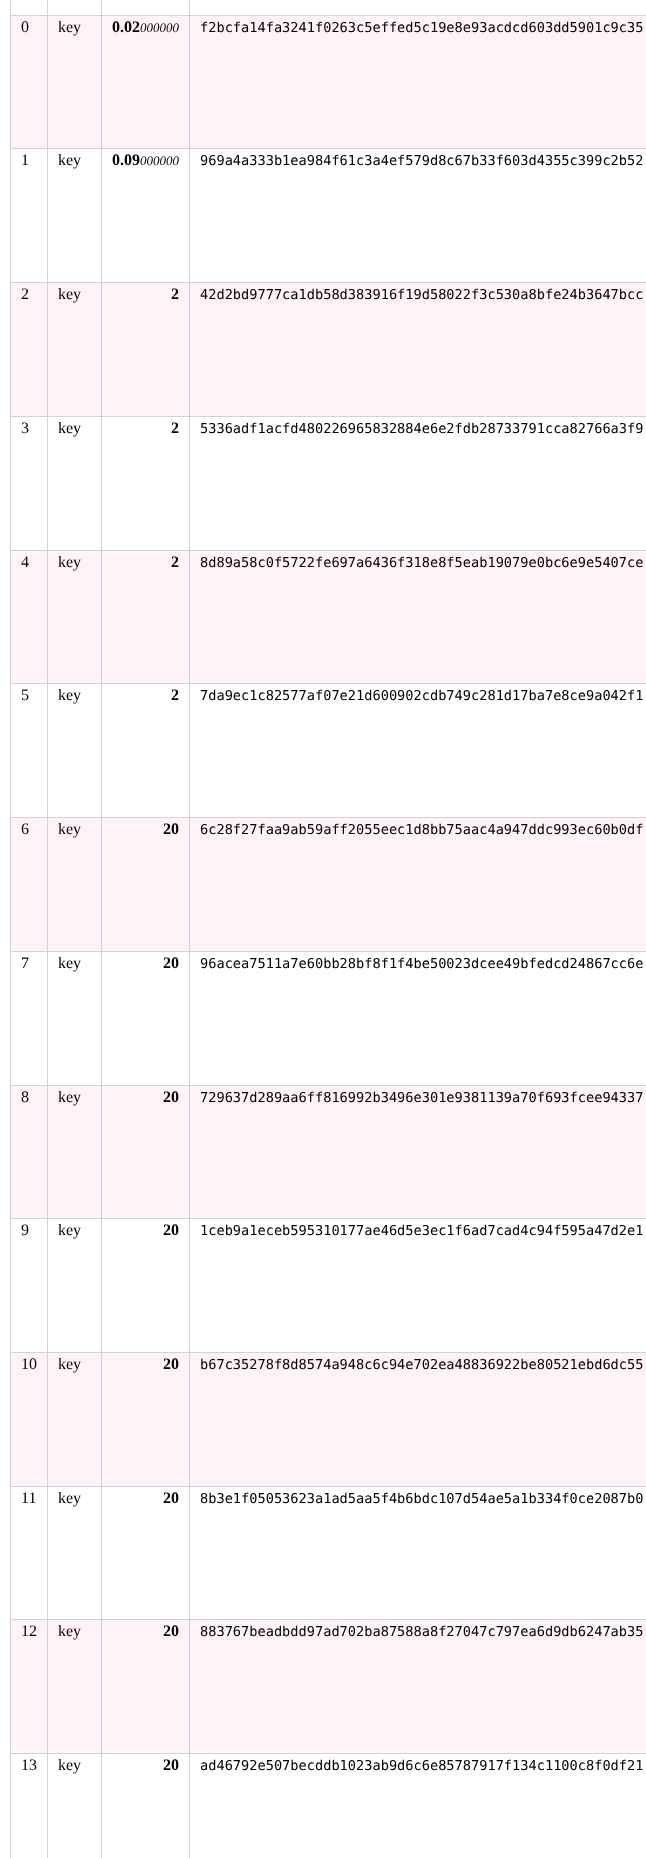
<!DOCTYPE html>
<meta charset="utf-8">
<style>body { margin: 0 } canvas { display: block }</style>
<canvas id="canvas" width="646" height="1858"></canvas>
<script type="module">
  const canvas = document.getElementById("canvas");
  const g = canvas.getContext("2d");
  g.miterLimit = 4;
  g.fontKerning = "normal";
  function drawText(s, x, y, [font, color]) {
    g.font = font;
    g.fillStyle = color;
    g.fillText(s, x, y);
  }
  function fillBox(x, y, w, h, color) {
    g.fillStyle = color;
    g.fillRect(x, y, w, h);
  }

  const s1 = ["16px Liberation Serif", "#000000"];
  const s2 = ["bold 16px Liberation Serif", "#000000"];
  const s3 = ["italic 13px Liberation Serif", "#000000"];
  const s4 = ["13.65px DejaVu Sans Mono", "#000000"];

  fillBox(0, 0, 646, 1858, "#FFFFFF");
  fillBox(189, 15, 457, 1, "#D3D3D3");
  fillBox(11, 16, 635, 132, "#FFF3F9");
  fillBox(189, 148, 457, 1, "#D3D3D3");
  fillBox(189, 282, 457, 1, "#D3D3D3");
  fillBox(11, 283, 635, 133, "#FFF3F9");
  fillBox(189, 416, 457, 1, "#D3D3D3");
  fillBox(189, 550, 457, 1, "#D3D3D3");
  fillBox(11, 551, 635, 132, "#FFF3F9");
  fillBox(189, 683, 457, 1, "#D3D3D3");
  fillBox(189, 817, 457, 1, "#D3D3D3");
  fillBox(11, 818, 635, 133, "#FFF3F9");
  fillBox(189, 951, 457, 1, "#D3D3D3");
  fillBox(189, 1085, 457, 1, "#D3D3D3");
  fillBox(11, 1086, 635, 132, "#FFF3F9");
  fillBox(189, 1218, 457, 1, "#D3D3D3");
  fillBox(189, 1352, 457, 1, "#D3D3D3");
  fillBox(11, 1353, 635, 133, "#FFF3F9");
  fillBox(189, 1486, 457, 1, "#D3D3D3");
  fillBox(189, 1619, 457, 1, "#D3D3D3");
  fillBox(11, 1620, 635, 133, "#FFF3F9");
  fillBox(189, 1753, 457, 1, "#D3D3D3");
  fillBox(189, 1753, 1, 105, "#D3D3D3");
  fillBox(101, 1753, 89, 1, "#D3D3D3");
  fillBox(189, 1619, 1, 135, "#D3D3D3");
  fillBox(101, 1619, 89, 1, "#D3D3D3");
  fillBox(189, 1486, 1, 134, "#D3D3D3");
  fillBox(101, 1486, 89, 1, "#D3D3D3");
  fillBox(189, 1352, 1, 135, "#D3D3D3");
  fillBox(101, 1352, 89, 1, "#D3D3D3");
  fillBox(189, 1218, 1, 135, "#D3D3D3");
  fillBox(101, 1218, 89, 1, "#D3D3D3");
  fillBox(189, 1085, 1, 134, "#D3D3D3");
  fillBox(101, 1085, 89, 1, "#D3D3D3");
  fillBox(189, 951, 1, 135, "#D3D3D3");
  fillBox(101, 951, 89, 1, "#D3D3D3");
  fillBox(189, 817, 1, 135, "#D3D3D3");
  fillBox(101, 817, 89, 1, "#D3D3D3");
  fillBox(189, 683, 1, 135, "#D3D3D3");
  fillBox(101, 683, 89, 1, "#D3D3D3");
  fillBox(189, 550, 1, 134, "#D3D3D3");
  fillBox(101, 550, 89, 1, "#D3D3D3");
  fillBox(189, 416, 1, 135, "#D3D3D3");
  fillBox(101, 416, 89, 1, "#D3D3D3");
  fillBox(189, 282, 1, 135, "#D3D3D3");
  fillBox(101, 282, 89, 1, "#D3D3D3");
  fillBox(189, 148, 1, 135, "#D3D3D3");
  fillBox(101, 148, 89, 1, "#D3D3D3");
  fillBox(189, 15, 1, 134, "#D3D3D3");
  fillBox(101, 15, 89, 1, "#D3D3D3");
  fillBox(101, 1753, 1, 105, "#D3D3D3");
  fillBox(47, 1753, 55, 1, "#D3D3D3");
  fillBox(101, 1619, 1, 135, "#D3D3D3");
  fillBox(47, 1619, 55, 1, "#D3D3D3");
  fillBox(101, 1486, 1, 134, "#D3D3D3");
  fillBox(47, 1486, 55, 1, "#D3D3D3");
  fillBox(101, 1352, 1, 135, "#D3D3D3");
  fillBox(47, 1352, 55, 1, "#D3D3D3");
  fillBox(101, 1218, 1, 135, "#D3D3D3");
  fillBox(47, 1218, 55, 1, "#D3D3D3");
  fillBox(101, 1085, 1, 134, "#D3D3D3");
  fillBox(47, 1085, 55, 1, "#D3D3D3");
  fillBox(101, 951, 1, 135, "#D3D3D3");
  fillBox(47, 951, 55, 1, "#D3D3D3");
  fillBox(101, 817, 1, 135, "#D3D3D3");
  fillBox(47, 817, 55, 1, "#D3D3D3");
  fillBox(101, 683, 1, 135, "#D3D3D3");
  fillBox(47, 683, 55, 1, "#D3D3D3");
  fillBox(101, 550, 1, 134, "#D3D3D3");
  fillBox(47, 550, 55, 1, "#D3D3D3");
  fillBox(101, 416, 1, 135, "#D3D3D3");
  fillBox(47, 416, 55, 1, "#D3D3D3");
  fillBox(101, 282, 1, 135, "#D3D3D3");
  fillBox(47, 282, 55, 1, "#D3D3D3");
  fillBox(101, 148, 1, 135, "#D3D3D3");
  fillBox(47, 148, 55, 1, "#D3D3D3");
  fillBox(101, 15, 1, 134, "#D3D3D3");
  fillBox(47, 15, 55, 1, "#D3D3D3");
  fillBox(47, 1753, 1, 105, "#D3D3D3");
  fillBox(10, 1753, 38, 1, "#D3D3D3");
  fillBox(47, 1619, 1, 135, "#D3D3D3");
  fillBox(10, 1619, 38, 1, "#D3D3D3");
  fillBox(47, 1486, 1, 134, "#D3D3D3");
  fillBox(10, 1486, 38, 1, "#D3D3D3");
  fillBox(47, 1352, 1, 135, "#D3D3D3");
  fillBox(10, 1352, 38, 1, "#D3D3D3");
  fillBox(47, 1218, 1, 135, "#D3D3D3");
  fillBox(10, 1218, 38, 1, "#D3D3D3");
  fillBox(47, 1085, 1, 134, "#D3D3D3");
  fillBox(10, 1085, 38, 1, "#D3D3D3");
  fillBox(47, 951, 1, 135, "#D3D3D3");
  fillBox(10, 951, 38, 1, "#D3D3D3");
  fillBox(47, 817, 1, 135, "#D3D3D3");
  fillBox(10, 817, 38, 1, "#D3D3D3");
  fillBox(47, 683, 1, 135, "#D3D3D3");
  fillBox(10, 683, 38, 1, "#D3D3D3");
  fillBox(47, 550, 1, 134, "#D3D3D3");
  fillBox(10, 550, 38, 1, "#D3D3D3");
  fillBox(47, 416, 1, 135, "#D3D3D3");
  fillBox(10, 416, 38, 1, "#D3D3D3");
  fillBox(47, 282, 1, 135, "#D3D3D3");
  fillBox(10, 282, 38, 1, "#D3D3D3");
  fillBox(47, 148, 1, 135, "#D3D3D3");
  fillBox(10, 148, 38, 1, "#D3D3D3");
  fillBox(47, 15, 1, 134, "#D3D3D3");
  fillBox(10, 15, 38, 1, "#D3D3D3");
  fillBox(47, 0, 1, 16, "#D3D3D3");
  fillBox(101, 0, 1, 16, "#D3D3D3");
  fillBox(189, 0, 1, 16, "#D3D3D3");
  fillBox(10, 1753, 1, 105, "#D3D3D3");
  fillBox(10, 1619, 1, 135, "#D3D3D3");
  fillBox(10, 1486, 1, 134, "#D3D3D3");
  fillBox(10, 1352, 1, 135, "#D3D3D3");
  fillBox(10, 1218, 1, 135, "#D3D3D3");
  fillBox(10, 1085, 1, 134, "#D3D3D3");
  fillBox(10, 951, 1, 135, "#D3D3D3");
  fillBox(10, 817, 1, 135, "#D3D3D3");
  fillBox(10, 683, 1, 135, "#D3D3D3");
  fillBox(10, 550, 1, 134, "#D3D3D3");
  fillBox(10, 416, 1, 135, "#D3D3D3");
  fillBox(10, 282, 1, 135, "#D3D3D3");
  fillBox(10, 148, 1, 135, "#D3D3D3");
  fillBox(10, 0, 1, 149, "#D3D3D3");
  drawText("0", 21, 32, s1);
  drawText("key", 58, 32, s1);
  drawText("0.02", 112, 32, s2);
  drawText("000000", 140, 32, s3);
  drawText("f2bcfa14fa3241f0263c5effed5c19e8e93acdcd603dd5901c9c35", 200, 32, s4);
  drawText("1", 21, 165, s1);
  drawText("key", 58, 165, s1);
  drawText("0.09", 112, 165, s2);
  drawText("000000", 140, 165, s3);
  drawText("969a4a333b1ea984f61c3a4ef579d8c67b33f603d4355c399c2b52", 200, 165, s4);
  drawText("2", 21, 299, s1);
  drawText("key", 58, 299, s1);
  drawText("2", 171, 299, s2);
  drawText("42d2bd9777ca1db58d383916f19d58022f3c530a8bfe24b3647bcc", 200, 299, s4);
  drawText("3", 21, 433, s1);
  drawText("key", 58, 433, s1);
  drawText("2", 171, 433, s2);
  drawText("5336adf1acfd480226965832884e6e2fdb28733791cca82766a3f9", 200, 433, s4);
  drawText("4", 21, 567, s1);
  drawText("key", 58, 567, s1);
  drawText("2", 171, 567, s2);
  drawText("8d89a58c0f5722fe697a6436f318e8f5eab19079e0bc6e9e5407ce", 200, 567, s4);
  drawText("5", 21, 700, s1);
  drawText("key", 58, 700, s1);
  drawText("2", 171, 700, s2);
  drawText("7da9ec1c82577af07e21d600902cdb749c281d17ba7e8ce9a042f1", 200, 700, s4);
  drawText("6", 21, 834, s1);
  drawText("key", 58, 834, s1);
  drawText("20", 163, 834, s2);
  drawText("6c28f27faa9ab59aff2055eec1d8bb75aac4a947ddc993ec60b0df", 200, 834, s4);
  drawText("7", 21, 968, s1);
  drawText("key", 58, 968, s1);
  drawText("20", 163, 968, s2);
  drawText("96acea7511a7e60bb28bf8f1f4be50023dcee49bfedcd24867cc6e", 200, 968, s4);
  drawText("8", 21, 1102, s1);
  drawText("key", 58, 1102, s1);
  drawText("20", 163, 1102, s2);
  drawText("729637d289aa6ff816992b3496e301e9381139a70f693fcee94337", 200, 1102, s4);
  drawText("9", 21, 1235, s1);
  drawText("key", 58, 1235, s1);
  drawText("20", 163, 1235, s2);
  drawText("1ceb9a1eceb595310177ae46d5e3ec1f6ad7cad4c94f595a47d2e1", 200, 1235, s4);
  drawText("10", 21, 1369, s1);
  drawText("key", 58, 1369, s1);
  drawText("20", 163, 1369, s2);
  drawText("b67c35278f8d8574a948c6c94e702ea48836922be80521ebd6dc55", 200, 1369, s4);
  drawText("11", 21, 1503, s1);
  drawText("key", 58, 1503, s1);
  drawText("20", 163, 1503, s2);
  drawText("8b3e1f05053623a1ad5aa5f4b6bdc107d54ae5a1b334f0ce2087b0", 200, 1503, s4);
  drawText("12", 21, 1636, s1);
  drawText("key", 58, 1636, s1);
  drawText("20", 163, 1636, s2);
  drawText("883767beadbdd97ad702ba87588a8f27047c797ea6d9db6247ab35", 200, 1636, s4);
  drawText("13", 21, 1770, s1);
  drawText("key", 58, 1770, s1);
  drawText("20", 163, 1770, s2);
  drawText("ad46792e507becddb1023ab9d6c6e85787917f134c1100c8f0df21", 200, 1770, s4);
</script>
